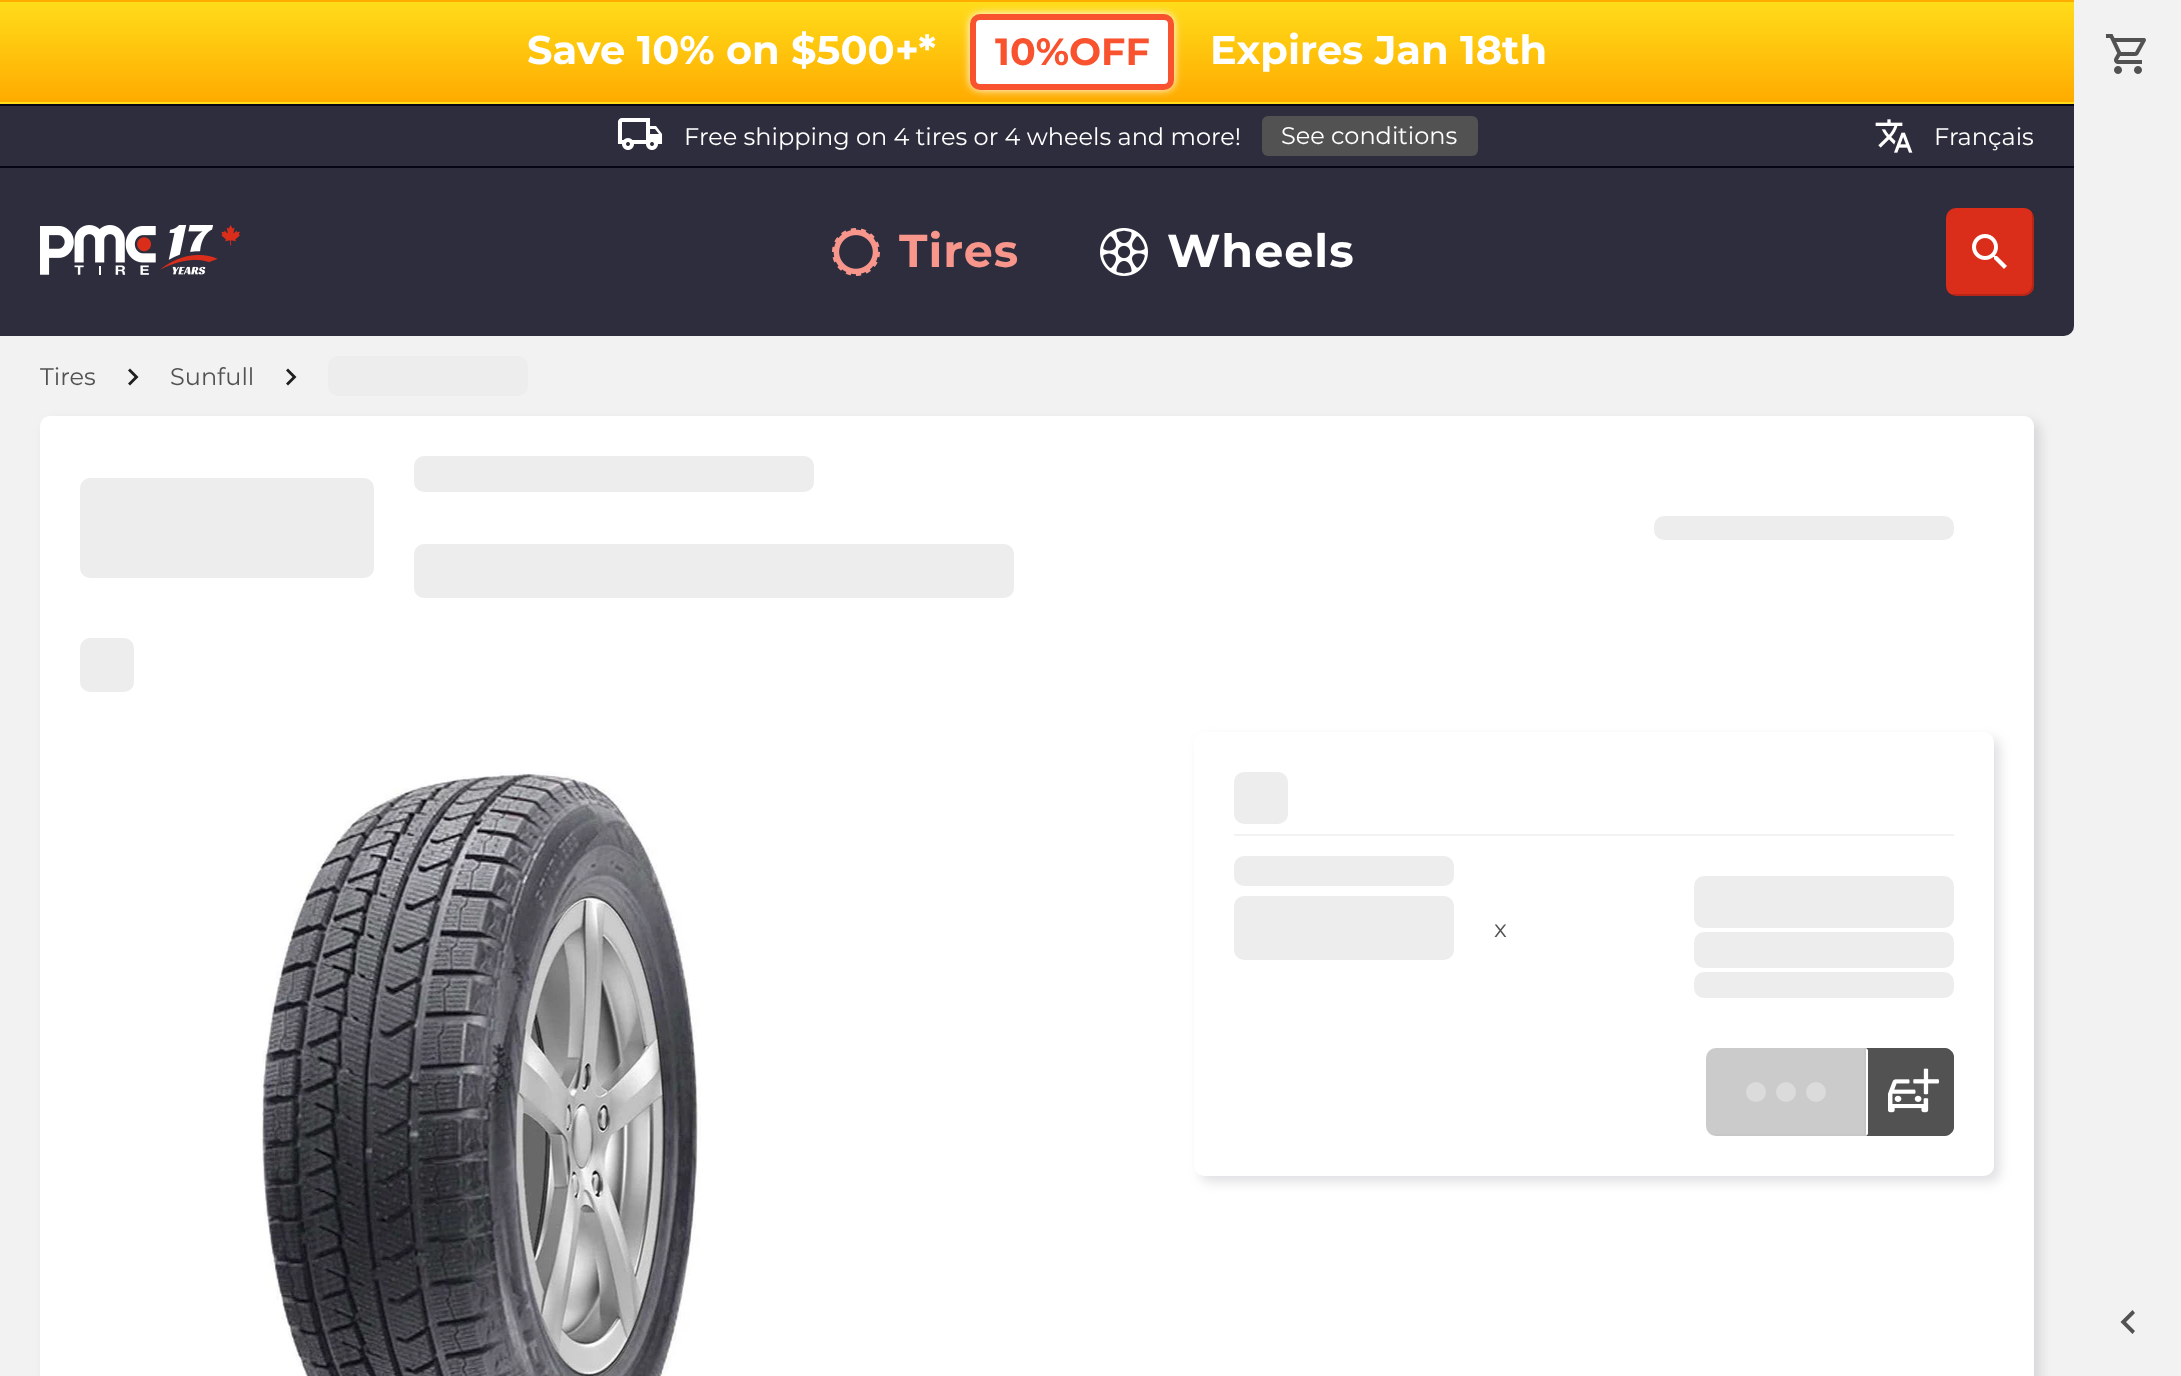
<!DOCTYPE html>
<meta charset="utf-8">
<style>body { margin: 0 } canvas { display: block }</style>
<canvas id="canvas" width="2181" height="1376"></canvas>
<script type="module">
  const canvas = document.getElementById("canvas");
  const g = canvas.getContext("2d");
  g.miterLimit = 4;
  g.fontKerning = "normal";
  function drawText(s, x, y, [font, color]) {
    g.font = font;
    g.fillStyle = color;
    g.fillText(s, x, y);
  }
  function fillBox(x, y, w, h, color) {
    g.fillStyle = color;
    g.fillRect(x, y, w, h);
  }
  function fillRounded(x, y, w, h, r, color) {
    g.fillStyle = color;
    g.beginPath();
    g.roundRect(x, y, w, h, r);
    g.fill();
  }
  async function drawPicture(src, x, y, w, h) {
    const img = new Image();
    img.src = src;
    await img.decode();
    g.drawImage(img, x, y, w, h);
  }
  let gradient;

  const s1 = ["bold 40px Montserrat", "#FFFFFF"];
  const s2 = ["bold 38px Montserrat", "#F8522E"];
  const s3 = ["24px Montserrat", "#FFFFFF"];
  const s4 = ["bold 46px Montserrat", "#F8968C"];
  const s5 = ["bold 46px Montserrat", "#FFFFFF"];
  const s6 = ["24px Montserrat", "#525252"];

  fillBox(0, 0, 2181, 1376, "#FFFFFF");
  gradient = g.createLinearGradient(1037, -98, 1037, 2);
  gradient.addColorStop(0, "#FFDC1A");
  gradient.addColorStop(1, "#FFAB00");
  g.fillStyle = gradient;
  g.fillRect(0, 0, 2074, 2);
  gradient = g.createLinearGradient(1037, 2, 1037, 102);
  gradient.addColorStop(0, "#FFDC1A");
  gradient.addColorStop(1, "#FFAB00");
  g.fillStyle = gradient;
  g.fillRect(0, 2, 2074, 100);
  gradient = g.createLinearGradient(1037, 102, 1037, 202);
  gradient.addColorStop(0, "#FFDC1A");
  gradient.addColorStop(1, "#FFAB00");
  g.fillStyle = gradient;
  g.fillRect(0, 102, 2074, 2);
  drawText("Save 10% on $500+*", 527, 64, s1);
  g.filter = "blur(4px)";
  g.beginPath();
  g.roundRect(970, 14, 204, 76, 10);
  g.fill();
  g.filter = "none";
  g.beginPath();
  g.roundRect(973, 17, 198, 70, 7);
  g.fill();
  g.strokeStyle = "#F8522E";
  g.lineWidth = 6;
  g.stroke();
  drawText("10%OFF", 995, 65, s2);
  drawText("Expires Jan 18th", 1210, 64, s1);
  fillBox(2064, 326, 10, 10, "#F2F2F2");
  g.fillStyle = "#2D2D3D";
  g.beginPath();
  g.roundRect(0, 104, 2074, 232, [0, 0, 10, 0]);
  g.fill();
  fillBox(0, 104, 2074, 2, "#050516");
  fillBox(0, 166, 2074, 2, "#050516");
  await drawPicture("pic1.png", 617, 118, 46, 32);
  drawText("Free shipping on 4 tires or 4 wheels and more!", 684, 145, s3);
  fillRounded(1262, 116, 216, 40, 6, "#525252");
  drawText("See conditions", 1281, 144, s3);
  await drawPicture("pic2.png", 1875, 119, 38, 34);
  drawText("Français", 1934, 145, s3);
  await drawPicture("pic3.png", 40, 225, 200, 50);
  await drawPicture("pic4.png", 832, 228, 48, 48);
  g.letterSpacing = "1px";
  drawText("Tires", 899, 267, s4);
  await drawPicture("pic5.png", 1100, 228, 48, 48);
  drawText("Wheels", 1167, 267, s5);
  fillRounded(1946, 208, 88, 88, 10, "#DA2E1B");
  g.fillStyle = "rgba(0, 0, 0, 0.16)";
  g.beginPath();
  g.moveTo(1948, 293);
  g.bezierCurveTo(1950, 295, 1953, 296, 1956, 296);
  g.lineTo(2024, 296);
  g.bezierCurveTo(2030, 296, 2034, 292, 2034, 286);
  g.lineTo(2034, 218);
  g.bezierCurveTo(2034, 215, 2033, 212, 2031, 210);
  g.bezierCurveTo(2032, 212, 2032, 214, 2032, 216);
  g.lineTo(2032, 284);
  g.bezierCurveTo(2032, 290, 2028, 294, 2022, 294);
  g.lineTo(1954, 294);
  g.bezierCurveTo(1952, 294, 1950, 294, 1948, 293);
  g.closePath();
  g.fill();
  await drawPicture("pic6.png", 1972, 234, 35, 35);
  fillBox(0, 336, 2074, 1040, "#F2F2F2");
  g.letterSpacing = "0px";
  drawText("Tires", 40, 385, s6);
  g.fillStyle = "#1F1F1F";
  g.beginPath();
  g.moveTo(130, 368.5);
  g.lineTo(128, 370.5);
  g.lineTo(134.5, 377);
  g.lineTo(128, 383.5);
  g.lineTo(130, 385.5);
  g.lineTo(138.5, 377);
  g.closePath();
  g.fill();
  drawText("Sunfull", 170, 385, s6);
  g.fillStyle = "#1F1F1F";
  g.beginPath();
  g.moveTo(288, 368.5);
  g.lineTo(286, 370.5);
  g.lineTo(292.5, 377);
  g.lineTo(286, 383.5);
  g.lineTo(288, 385.5);
  g.lineTo(296.5, 377);
  g.closePath();
  g.fill();
  fillRounded(328, 356, 200, 40, 10, "#EDEDED");
  g.fillStyle = "rgba(100, 101, 114, 0.2)";
  g.filter = "blur(6px)";
  g.beginPath();
  g.roundRect(46, 422, 1994, 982, 10);
  g.fill();
  g.filter = "none";
  g.fillStyle = "#FFFFFF";
  g.beginPath();
  g.roundRect(40, 416, 1994, 960, [10, 10, 0, 0]);
  g.fill();
  fillRounded(80, 478, 294, 100, 10, "#EDEDED");
  fillRounded(414, 456, 400, 36, 10, "#EDEDED");
  fillRounded(414, 544, 600, 54, 10, "#EDEDED");
  fillRounded(1654, 516, 300, 24, 10, "#EDEDED");
  fillRounded(80, 638, 54, 54, 10, "#EDEDED");
  await drawPicture("pic7.png", 260, 771, 441, 605);
  g.fillStyle = "rgba(100, 101, 114, 0.2)";
  g.filter = "blur(6px)";
  g.beginPath();
  g.roundRect(1200, 738, 800, 444, 10);
  g.fill();
  g.filter = "none";
  fillRounded(1194, 732, 800, 444, 10, "#FFFFFF");
  fillRounded(1234, 772, 54, 52, 10, "#EDEDED");
  fillBox(1234, 834, 720, 2, "#F2F2F2");
  fillRounded(1234, 856, 220, 30, 10, "#EDEDED");
  fillRounded(1234, 896, 220, 64, 10, "#EDEDED");
  drawText("x", 1494, 937, s6);
  fillRounded(1694, 876, 260, 52, 10, "#EDEDED");
  fillRounded(1694, 932, 260, 36, 10, "#EDEDED");
  fillRounded(1694, 972, 260, 26, 10, "#EDEDED");
  g.fillStyle = "#CBCBCB";
  g.beginPath();
  g.roundRect(1706, 1048, 160, 88, [10, 0, 0, 10]);
  g.fill();
  g.fillStyle = "rgba(179, 179, 179, 0.16)";
  g.beginPath();
  g.moveTo(1708, 1133);
  g.bezierCurveTo(1710, 1135, 1713, 1136, 1716, 1136);
  g.lineTo(1866, 1136);
  g.lineTo(1866, 1048);
  g.lineTo(1864, 1048);
  g.lineTo(1864, 1134);
  g.lineTo(1714, 1134);
  g.bezierCurveTo(1712, 1134, 1710, 1134, 1708, 1133);
  g.closePath();
  g.fill();
  g.fillStyle = "#DBDBDB";
  g.beginPath();
  g.arc(1786, 1092, 10, 0, Math.PI * 2);
  g.fill();
  g.beginPath();
  g.arc(1756, 1092, 10, 0, Math.PI * 2);
  g.fill();
  g.beginPath();
  g.arc(1816, 1092, 10, 0, Math.PI * 2);
  g.fill();
  g.fillStyle = "#525252";
  g.beginPath();
  g.roundRect(1866, 1048, 88, 88, [0, 10, 10, 0]);
  g.fill();
  g.beginPath();
  g.moveTo(1866, 1048);
  g.lineTo(1868, 1050);
  g.lineTo(1944, 1050);
  g.bezierCurveTo(1946, 1050, 1948, 1051, 1950, 1052);
  g.lineTo(1951, 1051);
  g.bezierCurveTo(1950, 1049, 1947, 1048, 1944, 1048);
  g.closePath();
  g.fill();
  g.beginPath();
  g.moveTo(1954, 1126);
  g.lineTo(1954, 1058);
  g.bezierCurveTo(1954, 1055, 1953, 1052, 1951, 1051);
  g.lineTo(1950, 1052);
  g.bezierCurveTo(1951, 1054, 1952, 1056, 1952, 1058);
  g.lineTo(1952, 1126);
  g.bezierCurveTo(1952, 1128, 1951, 1130, 1950, 1132);
  g.lineTo(1951, 1133);
  g.bezierCurveTo(1953, 1132, 1954, 1129, 1954, 1126);
  g.closePath();
  g.fill();
  g.beginPath();
  g.moveTo(1944, 1136);
  g.bezierCurveTo(1947, 1136, 1950, 1135, 1951, 1133);
  g.lineTo(1950, 1132);
  g.bezierCurveTo(1948, 1133, 1946, 1134, 1944, 1134);
  g.lineTo(1868, 1134);
  g.lineTo(1866, 1136);
  g.closePath();
  g.fill();
  g.fillStyle = "#FFFFFF";
  g.beginPath();
  g.moveTo(1866, 1048);
  g.lineTo(1866, 1136);
  g.lineTo(1868, 1134);
  g.lineTo(1868, 1050);
  g.closePath();
  g.fill();
  await drawPicture("pic8.png", 1888, 1068, 52, 45);
  fillBox(2074, 0, 107, 1376, "#F2F2F2");
  await drawPicture("pic9.png", 2105, 34, 41, 40);
  g.fillStyle = "#525252";
  g.beginPath();
  g.moveTo(2135, 1313);
  g.lineTo(2132.5, 1310);
  g.lineTo(2120.5, 1322);
  g.lineTo(2132.5, 1334);
  g.lineTo(2135, 1331);
  g.lineTo(2126, 1322);
  g.closePath();
  g.fill();
</script>
